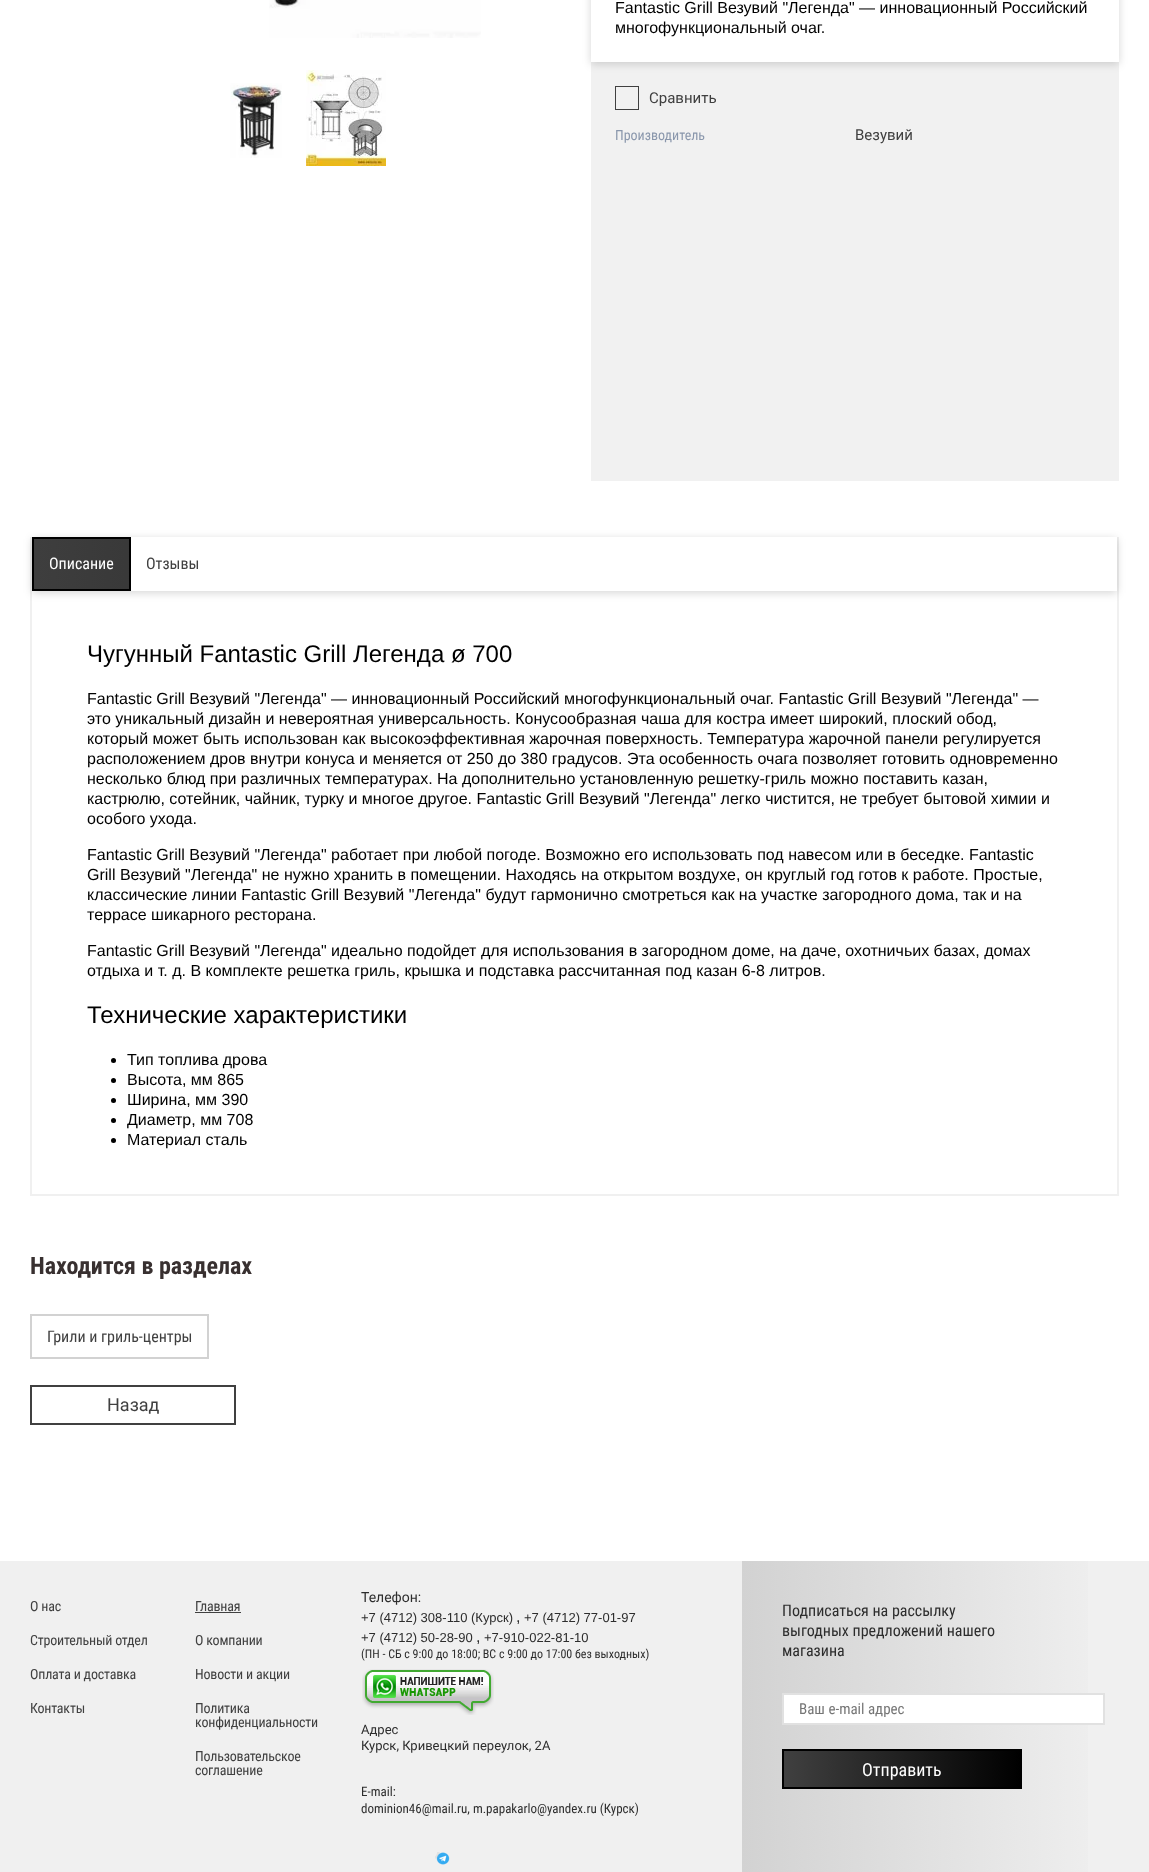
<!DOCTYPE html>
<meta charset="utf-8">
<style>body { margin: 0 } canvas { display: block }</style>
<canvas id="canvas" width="1149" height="1872"></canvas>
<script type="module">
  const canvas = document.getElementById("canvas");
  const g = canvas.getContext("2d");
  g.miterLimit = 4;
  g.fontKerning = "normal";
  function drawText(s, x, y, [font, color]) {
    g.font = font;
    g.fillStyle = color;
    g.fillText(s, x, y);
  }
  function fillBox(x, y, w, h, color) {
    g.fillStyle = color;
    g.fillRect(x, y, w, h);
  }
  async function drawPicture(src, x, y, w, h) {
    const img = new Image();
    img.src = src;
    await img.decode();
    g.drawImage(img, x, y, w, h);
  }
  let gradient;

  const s1 = ["16px Liberation Sans", "#000000"];
  const s2 = ["15px Roboto", "#404040"];
  const s3 = ["14px Roboto Condensed", "#8A97AC"];
  const s4 = ["16px Roboto Condensed", "#FFFFFF"];
  const s5 = ["16px Roboto Condensed", "#404040"];
  const s6 = ["24px Liberation Sans", "#000000"];
  const s7 = ["bold 24px Roboto Condensed", "#383030"];
  const s8 = ["18px Roboto", "#404040"];
  const s9 = ["14px Roboto Condensed", "#404040"];
  const s10 = ["14px Roboto", "#2D2D2D"];
  const s11 = ["13px Liberation Sans", "#2D2D2D"];
  const s12 = ["16px Liberation Sans", "#2D2D2D"];
  const s13 = ["12px Roboto Condensed", "#2D2D2D"];
  const s14 = ["13px Roboto", "#2D2D2D"];
  const s15 = ["13px Roboto Condensed", "#2D2D2D"];
  const s16 = ["16px Roboto Condensed", "#2D2D2D"];
  const s17 = ["15px Roboto Condensed", "#757575"];
  const s18 = ["18px Roboto Condensed", "#FFFFFF"];

  fillBox(0, 0, 1149, 1872, "#FFFFFF");
  await drawPicture("pic1.png", 269, 0, 212, 38);
  await drawPicture("pic2.png", 230, 83, 52, 75);
  await drawPicture("pic3.png", 306, 70, 80, 96);
  fillBox(591, 62, 528, 419, "#F1F1F1");
  g.save();
  g.beginPath();
  g.moveTo(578, 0);
  g.lineTo(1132, 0);
  g.lineTo(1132, 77);
  g.lineTo(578, 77);
  g.closePath();
  g.moveTo(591, -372);
  g.lineTo(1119, -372);
  g.lineTo(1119, 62);
  g.lineTo(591, 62);
  g.closePath();
  g.clip("evenodd");
  g.fillStyle = "rgba(0, 0, 0, 0.16)";
  g.filter = "blur(4px)";
  g.beginPath();
  g.rect(591, -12, 528, 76);
  g.fill();
  g.filter = "none";
  g.restore();
  drawText("Fantastic Grill Везувий \"Легенда\" — инновационный Российский", 615, 13, s1);
  drawText("многофункциональный очаг.", 615, 33, s1);
  g.strokeStyle = "#404040";
  g.strokeRect(615.5, 86.5, 23, 23);
  drawText("Сравнить", 649, 103, s2);
  drawText("Производитель", 615, 140, s3);
  drawText("Везувий", 855, 140, s2);
  fillBox(1117, 537, 2, 659, "#F0F0F0");
  fillBox(30, 1194, 1089, 2, "#F0F0F0");
  fillBox(30, 537, 2, 659, "#F0F0F0");
  g.save();
  g.beginPath();
  g.moveTo(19, 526);
  g.lineTo(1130, 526);
  g.lineTo(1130, 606);
  g.lineTo(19, 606);
  g.closePath();
  g.moveTo(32, 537);
  g.lineTo(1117, 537);
  g.lineTo(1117, 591);
  g.lineTo(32, 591);
  g.closePath();
  g.clip("evenodd");
  g.fillStyle = "rgba(0, 0, 0, 0.16)";
  g.filter = "blur(4px)";
  g.beginPath();
  g.rect(32, 539, 1085, 54);
  g.fill();
  g.filter = "none";
  g.restore();
  gradient = g.createLinearGradient(0, 936, 1149, 936);
  gradient.addColorStop(0, "#404040");
  gradient.addColorStop(1, "#000000");
  g.fillStyle = gradient;
  g.fillRect(34, 539, 95, 50);
  g.strokeStyle = "#000000";
  g.lineWidth = 2;
  g.strokeRect(33, 538, 97, 52);
  drawText("Описание", 49, 569, s4);
  drawText("Отзывы", 146, 569, s5);
  drawText("Чугунный Fantastic Grill Легенда ø 700", 87, 662, s6);
  drawText("Fantastic Grill Везувий \"Легенда\" — инновационный Российский многофункциональный очаг. Fantastic Grill Везувий \"Легенда\" —", 87, 704, s1);
  drawText("это уникальный дизайн и невероятная универсальность. Конусообразная чаша для костра имеет широкий, плоский обод,", 87, 724, s1);
  drawText("который может быть использован как высокоэффективная жарочная поверхность. Температура жарочной панели регулируется", 87, 744, s1);
  drawText("расположением дров внутри конуса и меняется от 250 до 380 градусов. Эта особенность очага позволяет готовить одновременно", 87, 764, s1);
  drawText("несколько блюд при различных температурах. На дополнительно установленную решетку-гриль можно поставить казан,", 87, 784, s1);
  drawText("кастрюлю, сотейник, чайник, турку и многое другое. Fantastic Grill Везувий \"Легенда\" легко чистится, не требует бытовой химии и", 87, 804, s1);
  drawText("особого ухода.", 87, 824, s1);
  drawText("Fantastic Grill Везувий \"Легенда\" работает при любой погоде. Возможно его использовать под навесом или в беседке. Fantastic", 87, 860, s1);
  drawText("Grill Везувий \"Легенда\" не нужно хранить в помещении. Находясь на открытом воздухе, он круглый год готов к работе. Простые,", 87, 880, s1);
  drawText("классические линии Fantastic Grill Везувий \"Легенда\" будут гармонично смотреться как на участке загородного дома, так и на", 87, 900, s1);
  drawText("террасе шикарного ресторана.", 87, 920, s1);
  drawText("Fantastic Grill Везувий \"Легенда\" идеально подойдет для использования в загородном доме, на даче, охотничьих базах, домах", 87, 956, s1);
  drawText("отдыха и т. д. В комплекте решетка гриль, крышка и подставка рассчитанная под казан 6-8 литров.", 87, 976, s1);
  drawText("Технические характеристики", 87, 1023, s6);
  g.beginPath();
  g.arc(113.5, 1060.5, 2.5, 0, Math.PI * 2);
  g.fill();
  drawText("Тип топлива дрова", 127, 1065, s1);
  g.beginPath();
  g.arc(113.5, 1080.5, 2.5, 0, Math.PI * 2);
  g.fill();
  drawText("Высота, мм 865", 127, 1085, s1);
  g.beginPath();
  g.arc(113.5, 1100.5, 2.5, 0, Math.PI * 2);
  g.fill();
  drawText("Ширина, мм 390", 127, 1105, s1);
  g.beginPath();
  g.arc(113.5, 1120.5, 2.5, 0, Math.PI * 2);
  g.fill();
  drawText("Диаметр, мм 708", 127, 1125, s1);
  g.beginPath();
  g.arc(113.5, 1140.5, 2.5, 0, Math.PI * 2);
  g.fill();
  drawText("Материал сталь", 127, 1145, s1);
  drawText("Находится в разделах", 30, 1274, s7);
  g.strokeStyle = "#D2D2D2";
  g.strokeRect(31, 1315, 177, 43);
  drawText("Грили и гриль-центры", 47, 1342, s5);
  g.strokeStyle = "#404040";
  g.strokeRect(31, 1386, 204, 38);
  drawText("Назад", 107, 1411, s8);
  fillBox(0, 1561, 1149, 311, "#F0F0F0");
  g.letterSpacing = "-0.2px";
  drawText("О нас", 30, 1611, s9);
  drawText("Строительный отдел", 30, 1645, s9);
  drawText("Оплата и доставка", 30, 1679, s9);
  drawText("Контакты", 30, 1713, s9);
  drawText("Главная", 195, 1611, s9);
  fillBox(195, 1612, 46, 1, "#404040");
  drawText("О компании", 195, 1645, s9);
  drawText("Новости и акции", 195, 1679, s9);
  drawText("Политика", 195, 1713, s9);
  drawText("конфиденциальности", 195, 1727, s9);
  drawText("Пользовательское", 195, 1761, s9);
  drawText("соглашение", 195, 1775, s9);
  g.letterSpacing = "0px";
  drawText("Телефон:", 361, 1602, s10);
  drawText("+7 (4712) 308-110 (Курск)", 361, 1622, s11);
  drawText(",", 516, 1622, s12);
  drawText("+7 (4712) 77-01-97", 524, 1622, s11);
  drawText("+7 (4712) 50-28-90", 361, 1642, s11);
  drawText(",", 476, 1642, s12);
  drawText("+7-910-022-81-10", 484, 1642, s11);
  drawText("(ПН - СБ с 9:00 до 18:00; ВС с 9:00 до 17:00 без выходных)", 361, 1658, s13);
  await drawPicture("pic4.png", 362, 1669, 132, 46);
  drawText("Адрес", 361, 1734, s14);
  drawText("Курск, Кривецкий переулок, 2А", 361, 1750, s14);
  drawText("Е-mail:", 361, 1796, s15);
  drawText("dominion46@mail.ru, m.papakarlo@yandex.ru (Курск)", 361, 1813, s15);
  await drawPicture("pic5.png", 435, 1852, 15, 13);
  gradient = g.createLinearGradient(742, 1785, 1119, 1785);
  gradient.addColorStop(0, "#D2D2D2");
  gradient.addColorStop(1, "#F0F0F0");
  g.fillStyle = gradient;
  g.fillRect(742, 1561, 346, 311);
  drawText("Подписаться на рассылку", 782, 1616, s16);
  drawText("выгодных предложений нашего", 782, 1636, s16);
  drawText("магазина", 782, 1656, s16);
  g.fillStyle = "#FFFFFF";
  g.beginPath();
  g.rect(783, 1694, 321, 30);
  g.fill();
  g.strokeStyle = "#E1E1E1";
  g.stroke();
  drawText("Ваш e-mail адрес", 799, 1714, s17);
  gradient = g.createLinearGradient(784, 1769, 1020, 1769);
  gradient.addColorStop(0, "#404040");
  gradient.addColorStop(1, "#000000");
  g.fillStyle = gradient;
  g.fillRect(784, 1751, 236, 36);
  g.strokeStyle = "#000000";
  g.strokeRect(783, 1750, 238, 38);
  drawText("Отправить", 862, 1776, s18);
</script>
